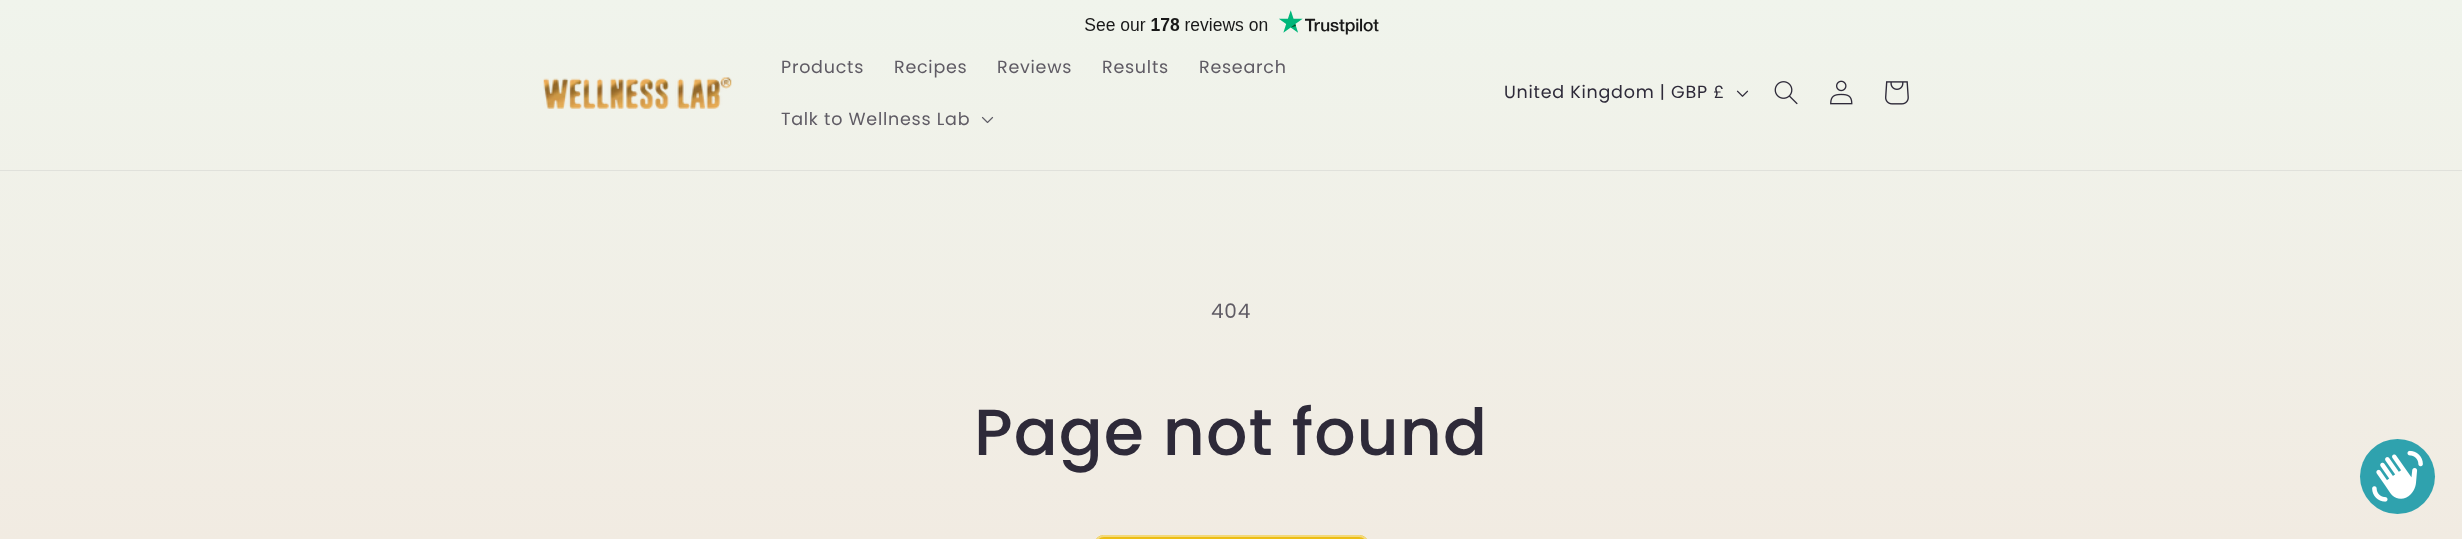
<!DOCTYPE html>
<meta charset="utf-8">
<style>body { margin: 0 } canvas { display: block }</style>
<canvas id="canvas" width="2462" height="539"></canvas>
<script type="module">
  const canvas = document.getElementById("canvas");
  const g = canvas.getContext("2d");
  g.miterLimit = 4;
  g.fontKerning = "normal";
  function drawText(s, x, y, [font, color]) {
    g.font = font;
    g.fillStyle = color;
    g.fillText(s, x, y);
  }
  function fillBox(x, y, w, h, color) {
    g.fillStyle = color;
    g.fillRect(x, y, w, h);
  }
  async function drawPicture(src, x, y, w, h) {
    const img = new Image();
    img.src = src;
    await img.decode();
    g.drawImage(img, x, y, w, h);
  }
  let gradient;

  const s1 = ["17.5px Poppins", "#5F5B64"];
  const s2 = ["17.5px Poppins", "#2E2A39"];
  const s3 = ["20px Poppins", "#5F5B64"];
  const s4 = ["500 65px Poppins", "#2E2A39"];

  fillBox(0, 0, 2462, 539, "#FFFFFF");
  gradient = g.createLinearGradient(1231, 0, 1231, 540);
  gradient.addColorStop(0, "#F0F4EC");
  gradient.addColorStop(1, "#F1EBE2");
  g.fillStyle = gradient;
  g.fillRect(0, 0, 2462, 539);
  await drawPicture("pic1.png", 1085, 10, 294, 25);
  fillBox(0, 170, 2462, 1, "#E0E1DB");
  await drawPicture("pic2.png", 543, 77, 189, 32);
  g.letterSpacing = "0.75px";
  drawText("Products", 781, 73, s1);
  drawText("Recipes", 894, 73, s1);
  drawText("Reviews", 997, 73, s1);
  drawText("Results", 1102, 73, s1);
  drawText("Research", 1199, 73, s1);
  drawText("Talk to Wellness Lab", 781, 125, s1);
  await drawPicture("pic3.png", 981, 116, 13, 8);
  drawText("United Kingdom | GBP £", 1504, 98, s2);
  await drawPicture("pic4.png", 1736, 90, 13, 7);
  await drawPicture("pic5.png", 1774, 81, 24, 24);
  await drawPicture("pic6.png", 1830, 80, 23, 25);
  await drawPicture("pic7.png", 1885, 81, 24, 24);
  drawText("404", 1211, 318, s3);
  g.letterSpacing = "1px";
  drawText("Page not found", 974, 455, s4);
  g.fillStyle = "#ECBD15";
  g.beginPath();
  g.roundRect(1094.5, 535.5, 274, 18, 13.5);
  g.fill();
  g.strokeStyle = "#ECBD15";
  g.stroke();
  g.beginPath();
  g.roundRect(1095, 536, 273, 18, 13);
  g.strokeStyle = "rgba(253, 251, 247, 0.45)";
  g.lineWidth = 2;
  g.stroke();
  g.fillStyle = "#2FA2AE";
  g.beginPath();
  g.arc(2397.5, 476.5, 37.5, 0, Math.PI * 2);
  g.fill();
  await drawPicture("pic8.png", 2372, 450, 51, 52);
</script>
